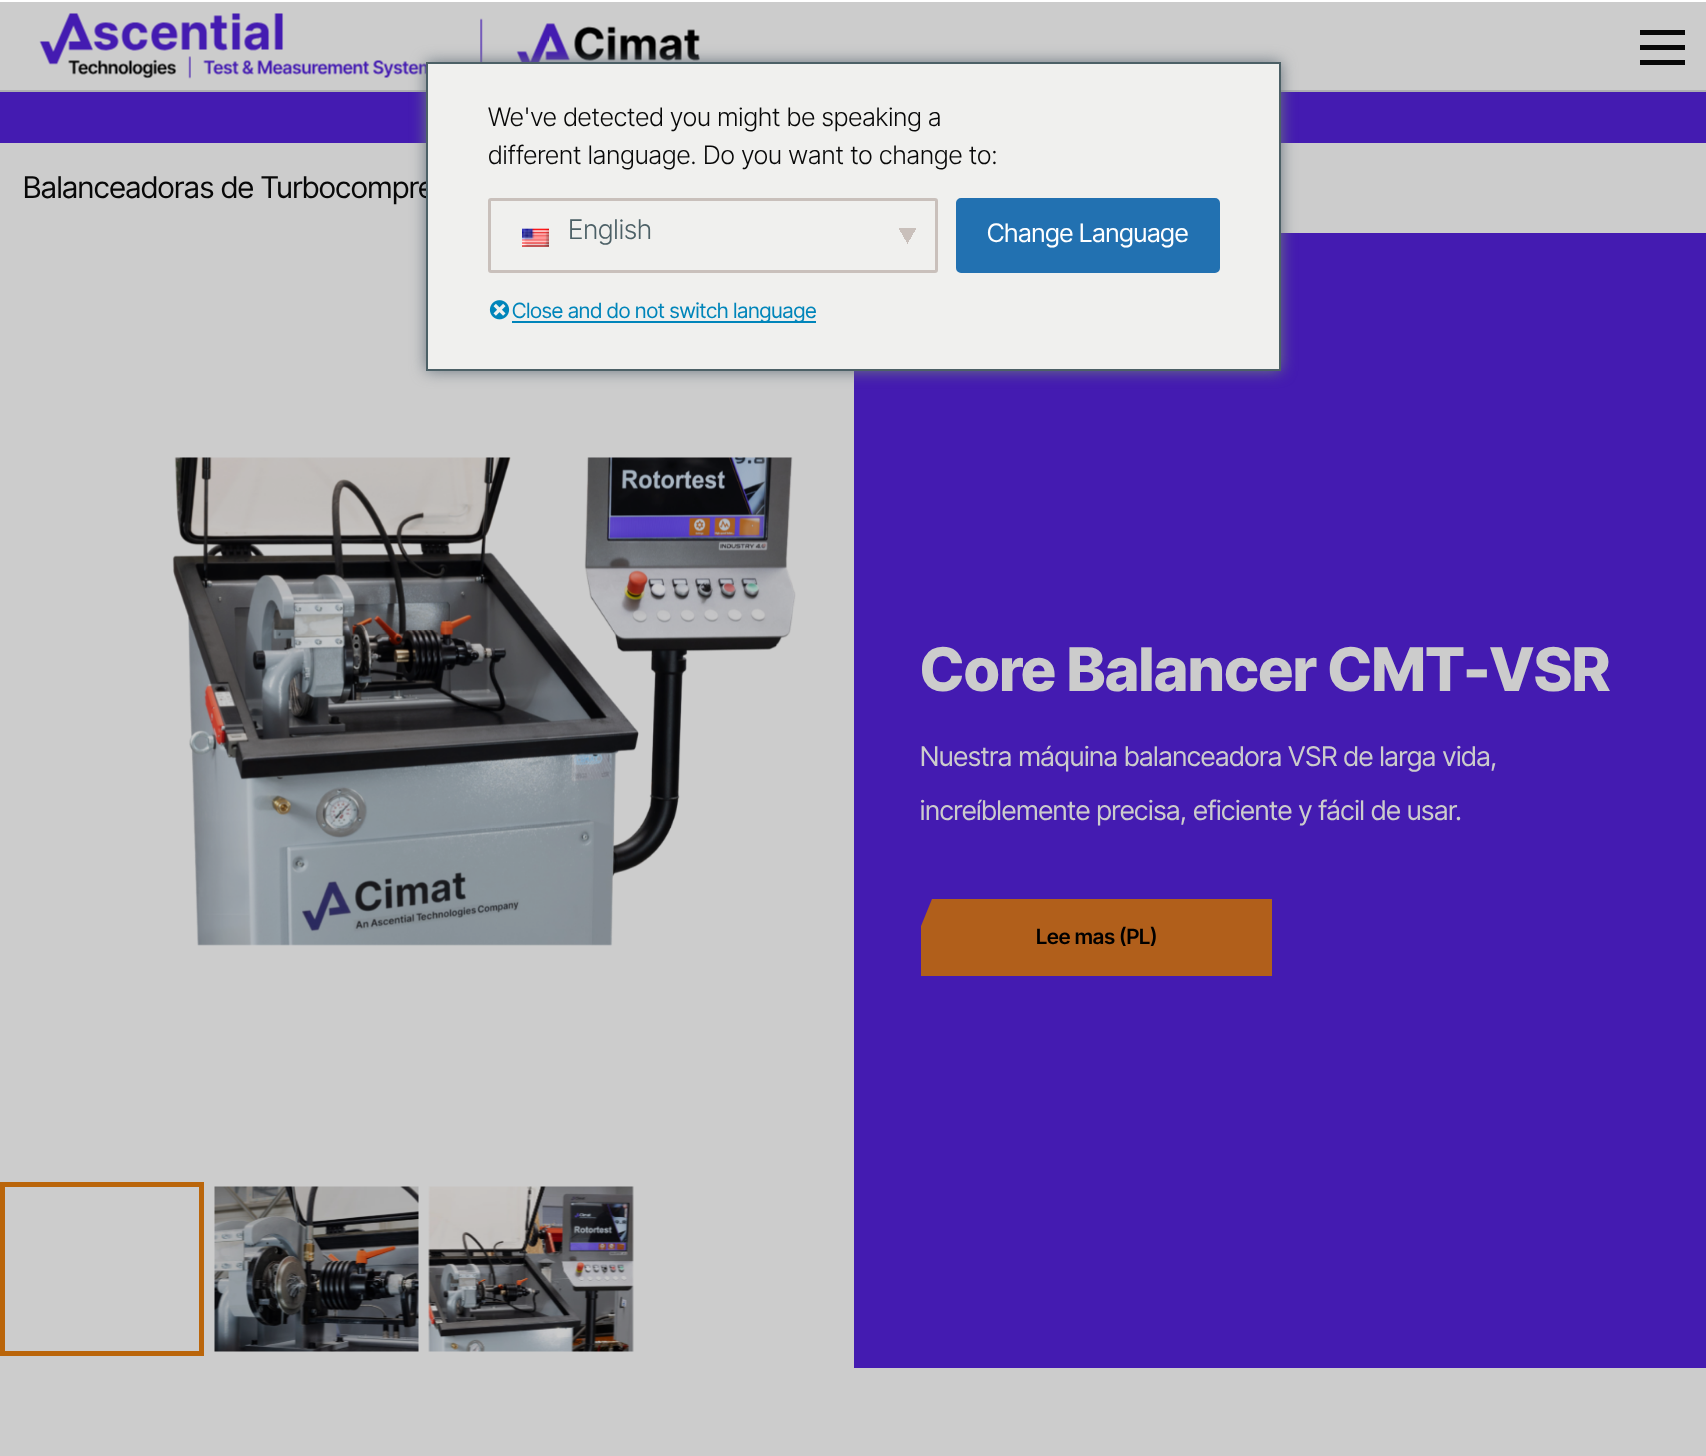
<!DOCTYPE html>
<meta charset="utf-8">
<style>body { margin: 0 } canvas { display: block }</style>
<canvas id="canvas" width="1706" height="1456"></canvas>
<script type="module">
  const canvas = document.getElementById("canvas");
  const g = canvas.getContext("2d");
  g.miterLimit = 4;
  g.fontKerning = "normal";
  function drawText(s, x, y, [font, color]) {
    g.font = font;
    g.fillStyle = color;
    g.fillText(s, x, y);
  }
  function fillBox(x, y, w, h, color) {
    g.fillStyle = color;
    g.fillRect(x, y, w, h);
  }
  async function drawPicture(src, x, y, w, h) {
    const img = new Image();
    img.src = src;
    await img.decode();
    g.drawImage(img, x, y, w, h);
  }
  let gradient;

  const s1 = ["30px Inter Tight", "#080808"];
  const s2 = ["300 25.5px Inter Tight", "#080808"];
  const s3 = ["300 27px Inter Tight", "#4C6066"];
  const s4 = ["25.5px Inter Tight", "#FFFFFF"];
  const s5 = ["21px Inter Tight", "#0085BA"];
  const s6 = ["800 60px Inter Tight", "#CCCCCC"];
  const s7 = ["27px Inter Tight", "#CCCCCC"];
  const s8 = ["600 21px Inter Tight", "#000000"];

  fillBox(0, 0, 1706, 1456, "#CCCCCC");
  fillBox(0, 0, 1706, 2, "#FFFFFF");
  fillBox(0, 90, 1706, 2, "#ACAEB1");
  await drawPicture("pic1.png", 39, 13, 661, 66);
  fillBox(1640, 30, 45, 5, "#080808");
  fillBox(1640, 45, 45, 5, "#080808");
  fillBox(1640, 60, 45, 5, "#080808");
  fillBox(0, 92, 1706, 51, "#441BB1");
  fillBox(854, 233, 852, 1135, "#441BB1");
  g.fillStyle = "#6C7781";
  g.filter = "blur(7.5px)";
  g.beginPath();
  g.rect(426, 62, 855, 309);
  g.fill();
  g.filter = "none";
  drawText("Balanceadoras de Turbocompre", 23, 198, s1);
  g.fillStyle = "#F0F0EE";
  g.beginPath();
  g.rect(427, 63, 853, 307);
  g.fill();
  g.strokeStyle = "#4C6066";
  g.lineWidth = 2;
  g.stroke();
  drawText("We've detected you might be speaking a", 488, 126, s2);
  drawText("different language. Do you want to change to:", 488, 164, s2);
  gradient = g.createLinearGradient(905, 232, 919, 240);
  gradient.addColorStop(0.5, "#C9C0BB");
  gradient.addColorStop(0.5, "#F0F0EE");
  g.fillStyle = gradient;
  g.fillRect(908, 228, 8, 14);
  gradient = g.createLinearGradient(896, 240, 910, 232);
  gradient.addColorStop(0.5, "#F0F0EE");
  gradient.addColorStop(0.5, "#C9C0BB");
  g.fillStyle = gradient;
  g.fillRect(899, 228, 9, 16);
  g.beginPath();
  g.roundRect(489.5, 199.5, 447, 72, 1.5);
  g.strokeStyle = "#C9C0BB";
  g.lineWidth = 3;
  g.stroke();
  await drawPicture("pic2.png", 522, 228, 27, 19);
  drawText("English", 568, 239, s3);
  g.fillStyle = "#2271B1";
  g.beginPath();
  g.roundRect(957, 199, 262, 73, 4);
  g.fill();
  g.strokeStyle = "#2271B1";
  g.lineWidth = 2;
  g.stroke();
  drawText("Change Language", 987, 242, s4);
  await drawPicture("pic3.png", 489, 300, 21, 20);
  fillBox(512, 321, 304, 2, "#0085BA");
  drawText("Close and do not switch language", 512, 318, s5);
  await drawPicture("pic4.png", 172, 457, 624, 489);
  g.strokeStyle = "#BA650A";
  g.lineWidth = 5;
  g.strokeRect(2.5, 1184.5, 199, 169);
  await drawPicture("pic5.png", 214, 1186, 205, 166);
  await drawPicture("pic6.png", 428, 1186, 206, 166);
  drawText("Core Balancer CMT-VSR", 920, 691, s6);
  drawText("Nuestra máquina balanceadora VSR de larga vida,", 920, 766, s7);
  drawText("increíblemente precisa, eficiente y fácil de usar.", 920, 820, s7);
  g.fillStyle = "#B15F1B";
  g.beginPath();
  g.moveTo(921, 926);
  g.lineTo(932, 899);
  g.lineTo(1272, 899);
  g.lineTo(1272, 976);
  g.lineTo(921, 976);
  g.closePath();
  g.fill();
  drawText("Lee mas (PL)", 1036, 944, s8);
</script>
